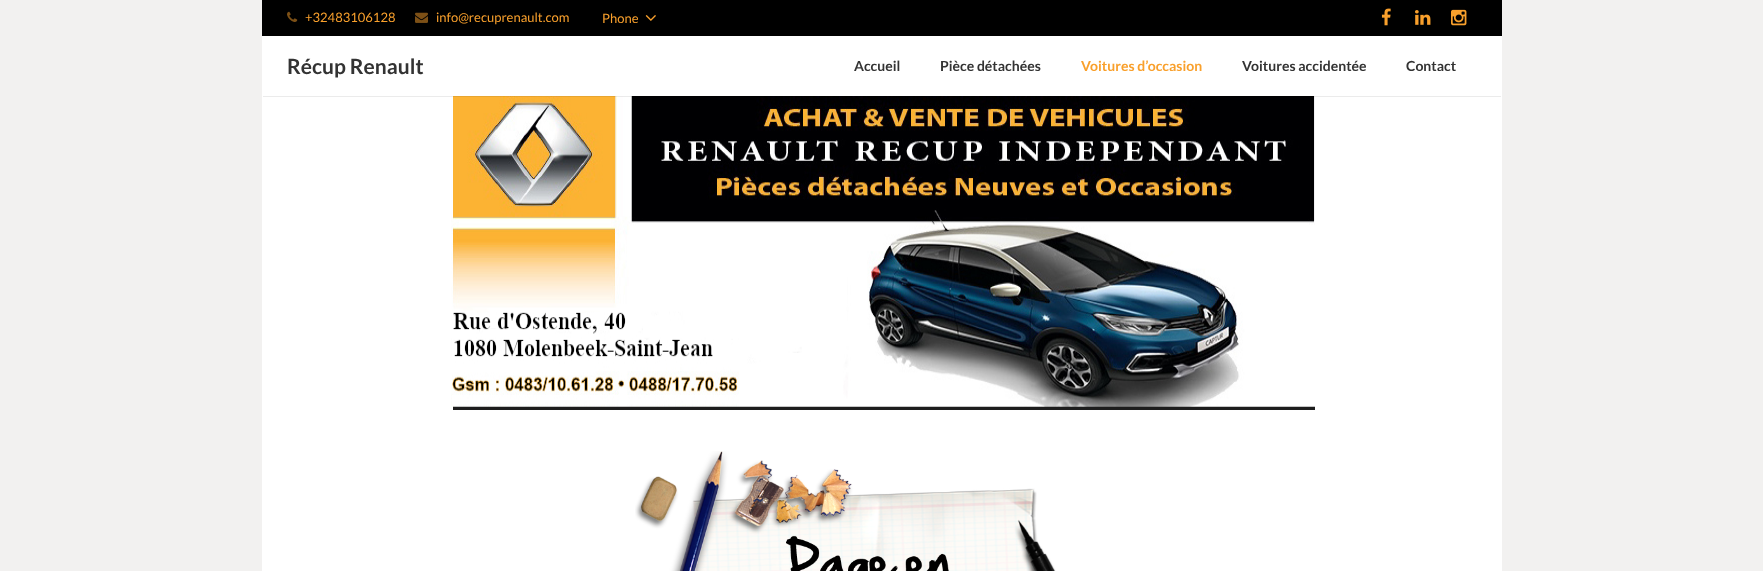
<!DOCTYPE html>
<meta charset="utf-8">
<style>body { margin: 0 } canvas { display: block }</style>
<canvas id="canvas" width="1763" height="571"></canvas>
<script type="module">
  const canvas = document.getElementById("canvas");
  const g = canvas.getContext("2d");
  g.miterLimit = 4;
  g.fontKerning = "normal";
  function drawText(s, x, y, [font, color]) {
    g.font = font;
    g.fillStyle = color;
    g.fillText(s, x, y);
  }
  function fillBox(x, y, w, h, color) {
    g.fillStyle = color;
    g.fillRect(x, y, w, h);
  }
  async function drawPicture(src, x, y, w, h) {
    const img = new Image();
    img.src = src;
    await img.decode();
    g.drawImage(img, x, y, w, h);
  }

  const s1 = ["13px Lato", "#F9A02C"];
  const s2 = ["bold 21px Lato", "#333333"];
  const s3 = ["bold 14px Lato", "#333333"];
  const s4 = ["bold 14px Lato", "#F9A02C"];

  fillBox(0, 0, 1763, 571, "#F2F1F0");
  fillBox(262, 36, 1240, 535, "#FFFFFF");
  fillBox(262, 0, 1240, 36, "#000000");
  await drawPicture("pic1.png", 287, 11, 11, 11);
  drawText("+32483106128", 305, 22, s1);
  await drawPicture("pic2.png", 415, 12, 13, 11);
  drawText("info@recuprenault.com", 436, 22, s1);
  drawText("Phone", 602, 23, s1);
  await drawPicture("pic3.png", 645, 15, 11, 6);
  await drawPicture("pic4.png", 1381, 8, 10, 18);
  await drawPicture("pic5.png", 1415, 10, 16, 15);
  await drawPicture("pic6.png", 1451, 9, 16, 17);
  await drawPicture("pic7.png", 451, 96, 864, 314);
  fillBox(263, 96, 1238, 1, "rgba(0, 0, 0, 0.08)");
  drawText("Récup Renault", 287, 74, s2);
  drawText("Accueil", 854, 71, s3);
  drawText("Pièce détachées", 940, 71, s3);
  drawText("Voitures d’occasion", 1081, 71, s4);
  drawText("Voitures accidentée", 1242, 71, s3);
  drawText("Contact", 1406, 71, s3);
  await drawPicture("pic8.png", 635, 451, 421, 120);
</script>
